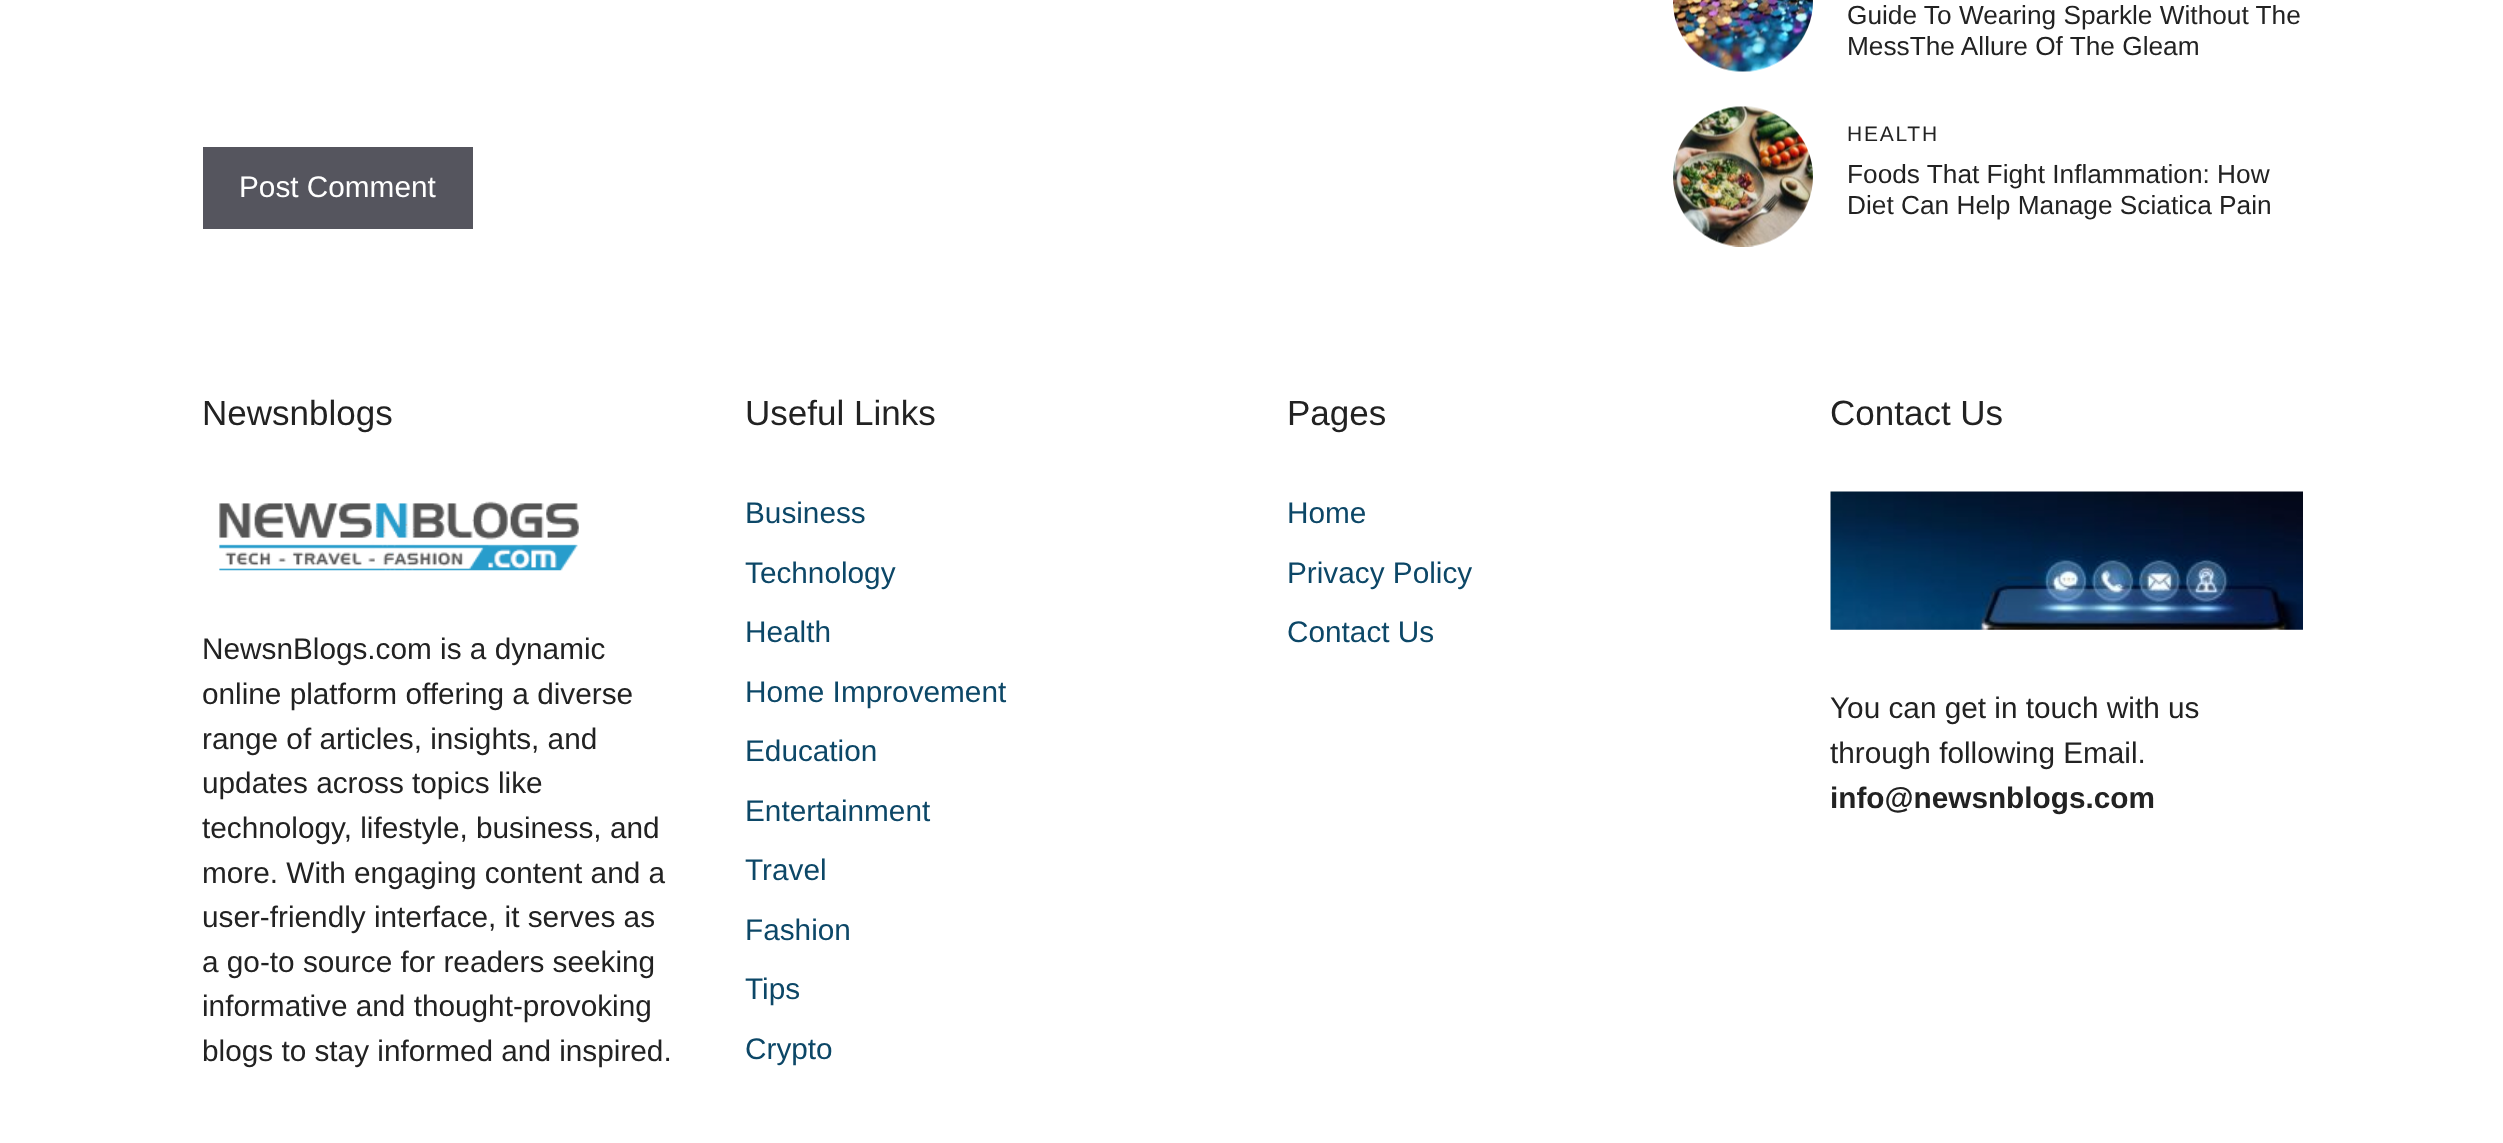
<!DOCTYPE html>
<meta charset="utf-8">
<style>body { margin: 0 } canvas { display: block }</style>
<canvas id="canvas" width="2503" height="1143"></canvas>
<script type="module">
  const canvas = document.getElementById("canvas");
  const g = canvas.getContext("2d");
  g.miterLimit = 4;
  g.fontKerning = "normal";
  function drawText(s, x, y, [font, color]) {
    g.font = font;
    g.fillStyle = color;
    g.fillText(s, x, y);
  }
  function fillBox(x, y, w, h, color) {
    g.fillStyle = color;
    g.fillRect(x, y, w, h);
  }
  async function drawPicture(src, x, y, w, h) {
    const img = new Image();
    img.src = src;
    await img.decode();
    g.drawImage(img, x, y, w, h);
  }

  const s1 = ["29.75px Liberation Sans", "#FFFFFF"];
  const s2 = ["26.25px Liberation Sans", "#222222"];
  const s3 = ["21px Liberation Sans", "#222222"];
  const s4 = ["35px Liberation Sans", "#222222"];
  const s5 = ["29.75px Liberation Sans", "#222222"];
  const s6 = ["29.75px Liberation Sans", "#0C4767"];
  const s7 = ["bold 29.75px Liberation Sans", "#222222"];

  fillBox(0, 0, 2503, 1143, "#FFFFFF");
  fillBox(203, 147, 270, 82, "#55555E");
  drawText("Post Comment", 239, 197, s1);
  await drawPicture("pic1.png", 1673, 0, 140, 72);
  drawText("Guide To Wearing Sparkle Without The", 1847, 24, s2);
  drawText("MessThe Allure Of The Gleam", 1847, 55, s2);
  await drawPicture("pic2.png", 1673, 106, 140, 141);
  g.letterSpacing = "1.75px";
  drawText("HEALTH", 1847, 141, s3);
  g.letterSpacing = "0px";
  drawText("Foods That Fight Inflammation: How", 1847, 183, s2);
  drawText("Diet Can Help Manage Sciatica Pain", 1847, 214, s2);
  drawText("Newsnblogs", 202, 425, s4);
  await drawPicture("pic3.png", 219, 501, 360, 70);
  drawText("NewsnBlogs.com is a dynamic", 202, 659, s5);
  drawText("online platform offering a diverse", 202, 704, s5);
  drawText("range of articles, insights, and", 202, 749, s5);
  drawText("updates across topics like", 202, 793, s5);
  drawText("technology, lifestyle, business, and", 202, 838, s5);
  drawText("more. With engaging content and a", 202, 883, s5);
  drawText("user-friendly interface, it serves as", 202, 927, s5);
  drawText("a go-to source for readers seeking", 202, 972, s5);
  drawText("informative and thought-provoking", 202, 1016, s5);
  drawText("blogs to stay informed and inspired.", 202, 1061, s5);
  drawText("Useful Links", 745, 425, s4);
  drawText("Business", 745, 523, s6);
  drawText("Technology", 745, 583, s6);
  drawText("Health", 745, 642, s6);
  drawText("Home Improvement", 745, 702, s6);
  drawText("Education", 745, 761, s6);
  drawText("Entertainment", 745, 821, s6);
  drawText("Travel", 745, 880, s6);
  drawText("Fashion", 745, 940, s6);
  drawText("Tips", 745, 999, s6);
  drawText("Crypto", 745, 1059, s6);
  drawText("Pages", 1287, 425, s4);
  drawText("Home", 1287, 523, s6);
  drawText("Privacy Policy", 1287, 583, s6);
  drawText("Contact Us", 1287, 642, s6);
  drawText("Contact Us", 1830, 425, s4);
  await drawPicture("pic4.png", 1830, 491, 473, 139);
  drawText("You can get in touch with us", 1830, 718, s5);
  drawText("through following Email.", 1830, 763, s5);
  drawText("info@newsnblogs.com", 1830, 808, s7);
</script>
